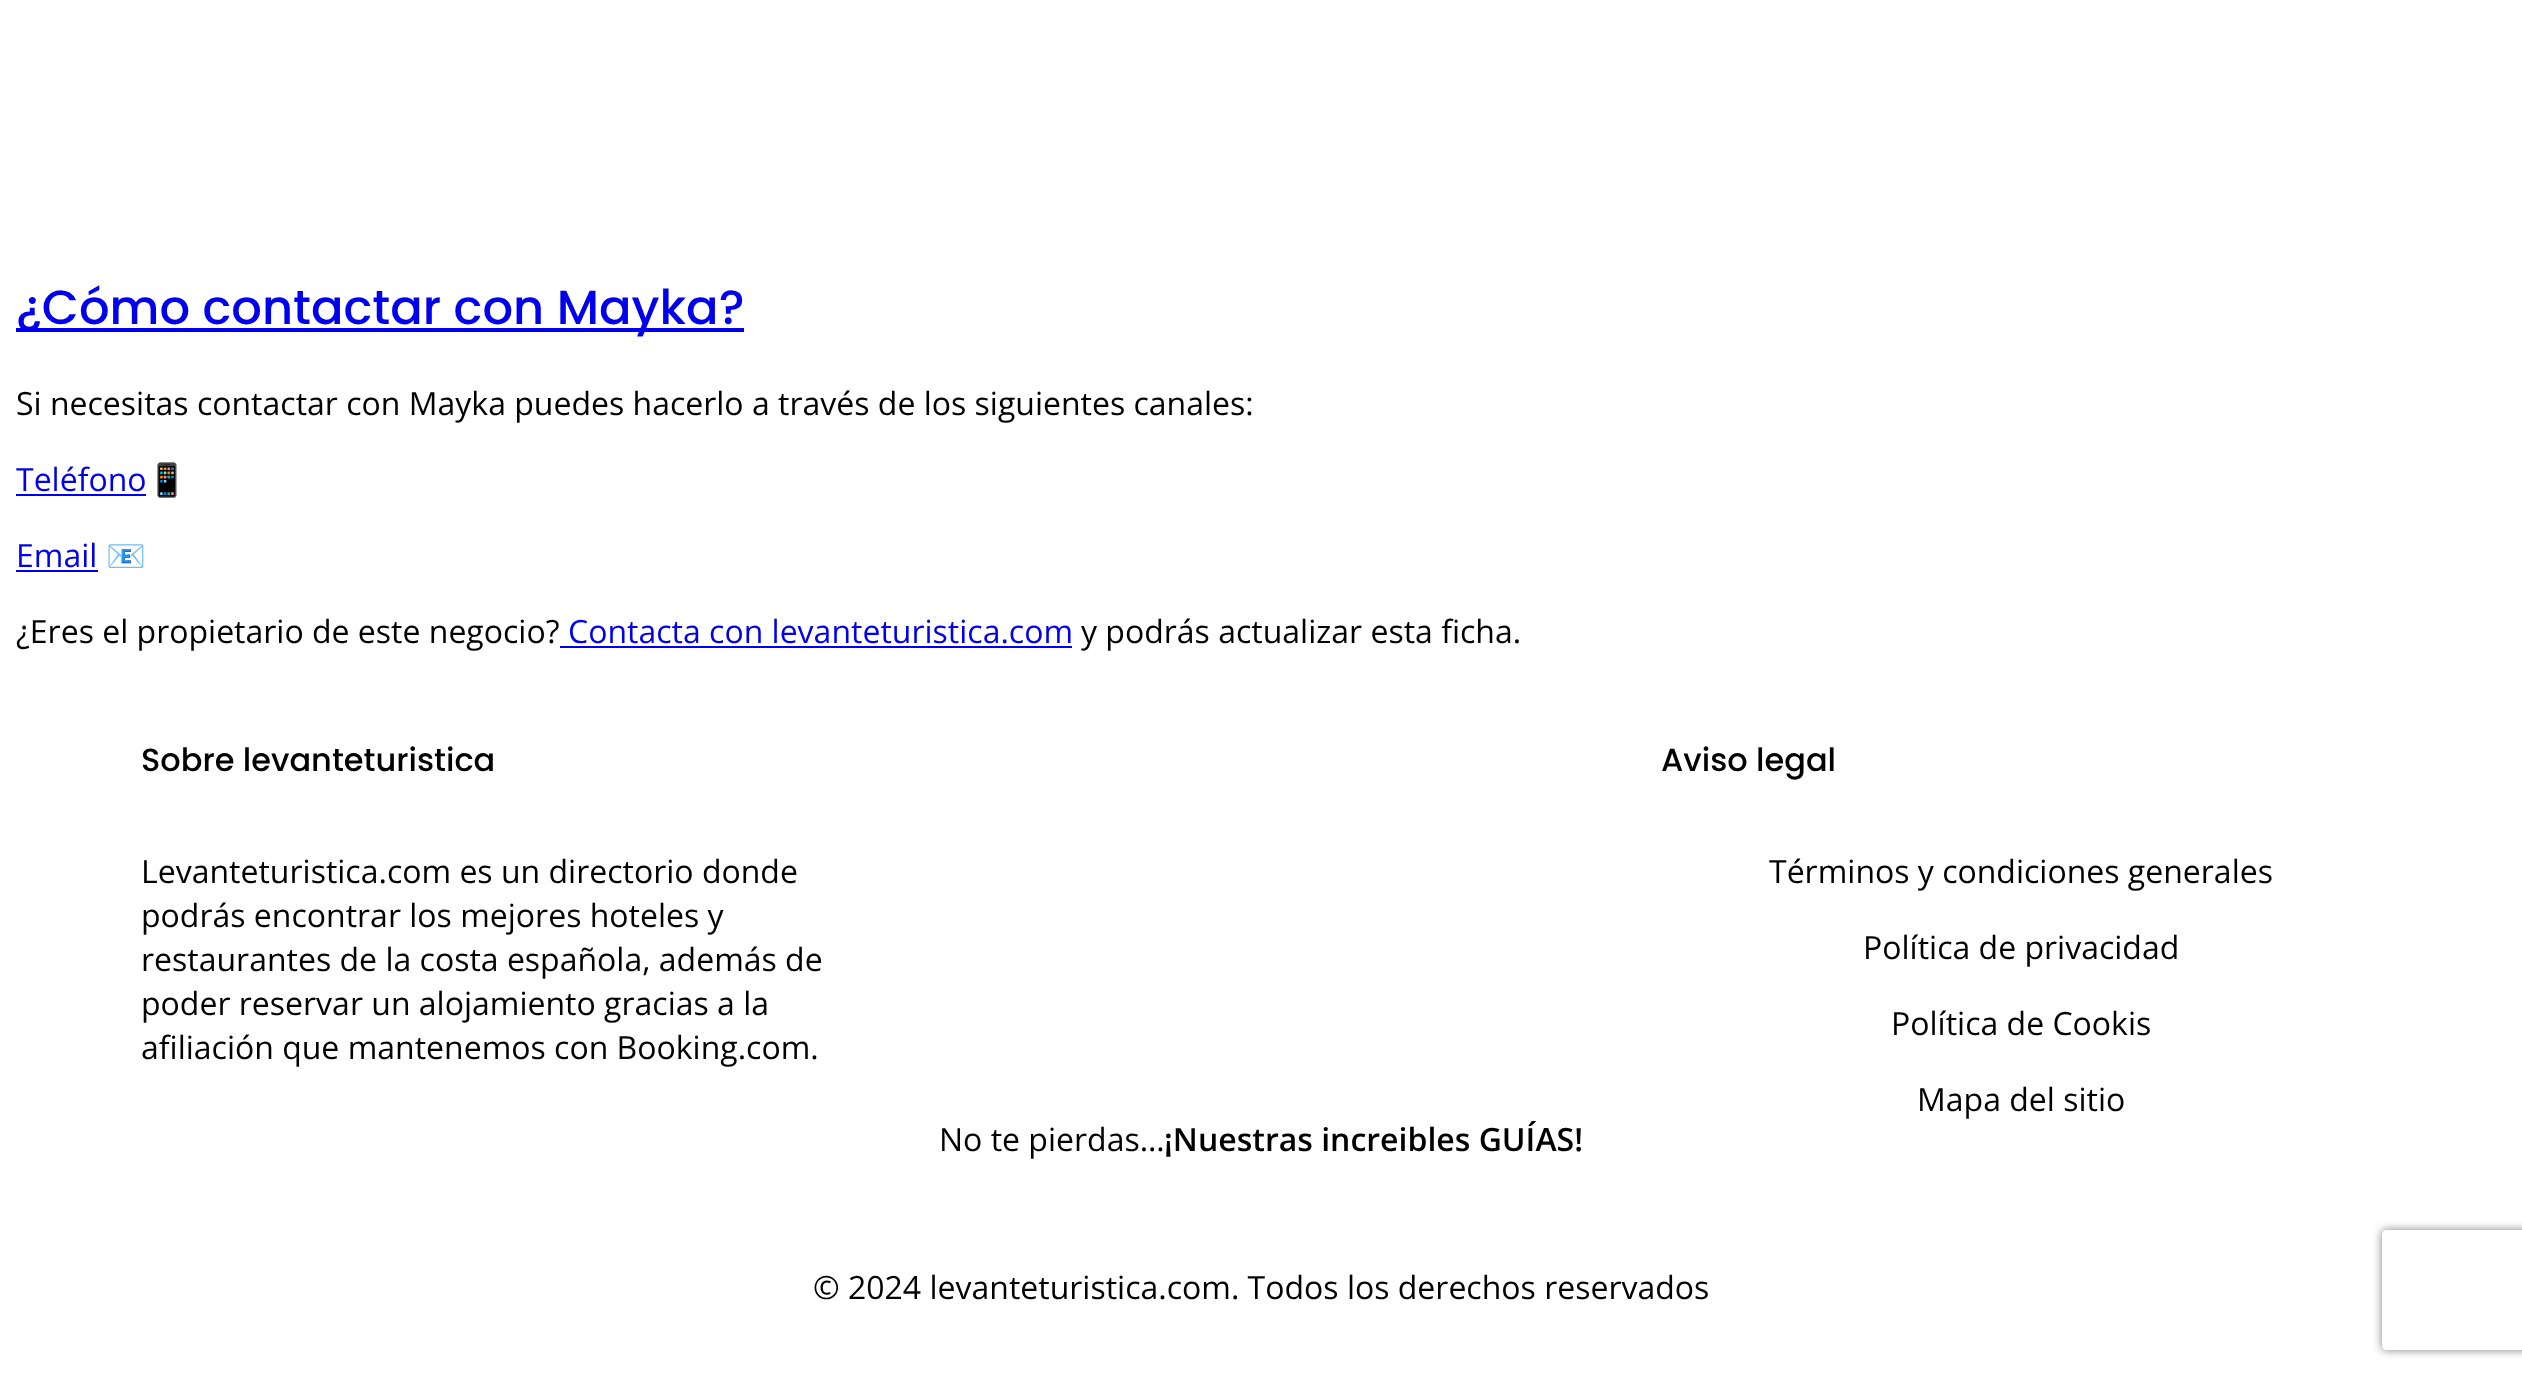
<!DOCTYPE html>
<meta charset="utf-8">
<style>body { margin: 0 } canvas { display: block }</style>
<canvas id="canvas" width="2522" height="1377"></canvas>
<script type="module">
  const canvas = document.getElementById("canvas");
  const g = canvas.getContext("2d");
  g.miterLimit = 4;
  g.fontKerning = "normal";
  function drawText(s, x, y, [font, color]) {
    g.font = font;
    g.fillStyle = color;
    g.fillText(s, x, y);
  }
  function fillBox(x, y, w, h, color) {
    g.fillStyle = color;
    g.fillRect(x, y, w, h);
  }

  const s1 = ["500 48px Poppins", "#0000EE"];
  const s2 = ["32px Open Sans", "#000000"];
  const s3 = ["32px Open Sans", "#0000EE"];
  const s4 = ["32px Noto Color Emoji", "#000000"];
  const s5 = ["500 32px Poppins", "#000000"];
  const s6 = ["600 32px Open Sans", "#000000"];

  fillBox(0, 0, 2522, 1377, "#FFFFFF");
  fillBox(16, 328, 728, 4, "#0000EE");
  drawText("¿Cómo contactar con Mayka?", 16, 324, s1);
  drawText("Si necesitas contactar con Mayka puedes hacerlo a través de los siguientes canales:", 16, 415, s2);
  drawText("Teléfono", 16, 491, s3);
  fillBox(16, 494, 130, 2, "#0000EE");
  drawText("📱", 147, 491, s4);
  drawText("Email", 16, 567, s3);
  fillBox(16, 570, 82, 2, "#0000EE");
  drawText("📧", 106, 567, s4);
  drawText("¿Eres el propietario de este negocio?", 16, 643, s2);
  drawText("Contacta con levanteturistica.com", 568, 643, s3);
  fillBox(560, 646, 512, 2, "#0000EE");
  drawText("y podrás actualizar esta ficha.", 1081, 643, s2);
  drawText("Sobre levanteturistica", 141, 771, s5);
  drawText("Levanteturistica.com es un directorio donde", 141, 883, s2);
  drawText("podrás encontrar los mejores hoteles y", 141, 927, s2);
  drawText("restaurantes de la costa española, además de", 141, 971, s2);
  drawText("poder reservar un alojamiento gracias a la", 141, 1015, s2);
  drawText("afiliación que mantenemos con Booking.com.", 141, 1059, s2);
  drawText("Aviso legal", 1661, 771, s5);
  drawText("Términos y condiciones generales", 1769, 883, s2);
  drawText("Política de privacidad", 1863, 959, s2);
  drawText("Política de Cookis", 1891, 1035, s2);
  drawText("Mapa del sitio", 1917, 1111, s2);
  drawText("No te pierdas…", 939, 1151, s2);
  drawText("¡Nuestras increibles GUÍAS!", 1164, 1151, s6);
  drawText("© 2024 levanteturistica.com. Todos los derechos reservados", 813, 1299, s2);
  g.save();
  g.beginPath();
  g.moveTo(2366, 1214);
  g.lineTo(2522, 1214);
  g.lineTo(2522, 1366);
  g.lineTo(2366, 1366);
  g.closePath();
  g.moveTo(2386, 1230);
  g.lineTo(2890, 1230);
  g.bezierCurveTo(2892, 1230, 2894, 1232, 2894, 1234);
  g.lineTo(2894, 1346);
  g.bezierCurveTo(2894, 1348, 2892, 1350, 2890, 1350);
  g.lineTo(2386, 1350);
  g.bezierCurveTo(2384, 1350, 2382, 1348, 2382, 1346);
  g.lineTo(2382, 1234);
  g.bezierCurveTo(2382, 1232, 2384, 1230, 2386, 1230);
  g.closePath();
  g.clip("evenodd");
  g.fillStyle = "#808080";
  g.filter = "blur(5px)";
  g.beginPath();
  g.roundRect(2382, 1230, 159, 120, 4);
  g.fill();
  g.filter = "none";
  g.restore();
</script>
